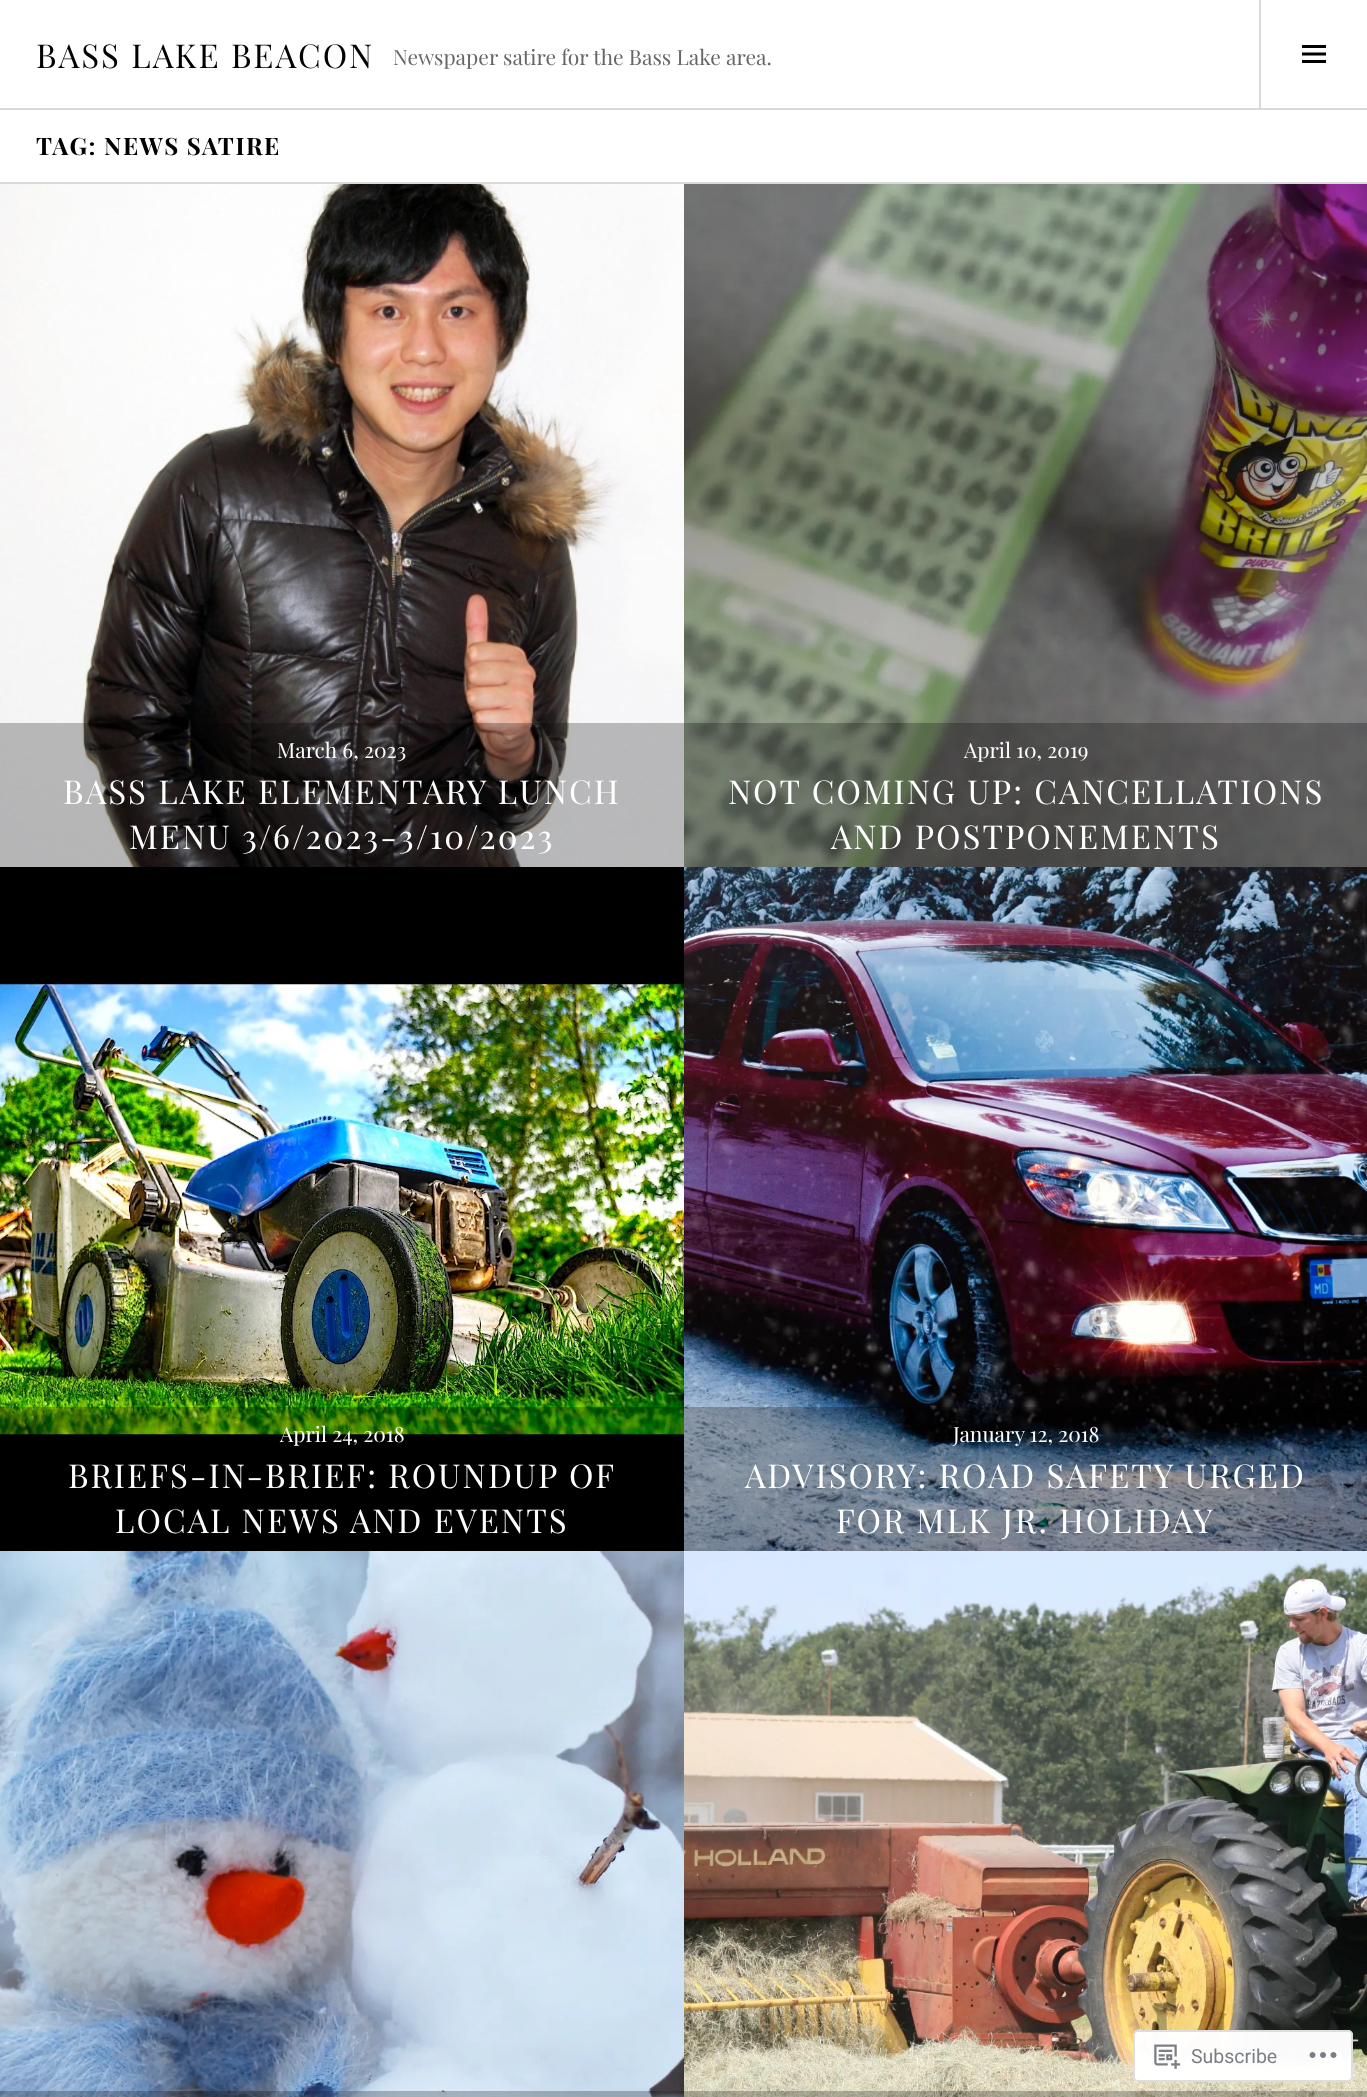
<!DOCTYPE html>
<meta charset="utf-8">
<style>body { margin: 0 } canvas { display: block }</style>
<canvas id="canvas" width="1367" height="2097"></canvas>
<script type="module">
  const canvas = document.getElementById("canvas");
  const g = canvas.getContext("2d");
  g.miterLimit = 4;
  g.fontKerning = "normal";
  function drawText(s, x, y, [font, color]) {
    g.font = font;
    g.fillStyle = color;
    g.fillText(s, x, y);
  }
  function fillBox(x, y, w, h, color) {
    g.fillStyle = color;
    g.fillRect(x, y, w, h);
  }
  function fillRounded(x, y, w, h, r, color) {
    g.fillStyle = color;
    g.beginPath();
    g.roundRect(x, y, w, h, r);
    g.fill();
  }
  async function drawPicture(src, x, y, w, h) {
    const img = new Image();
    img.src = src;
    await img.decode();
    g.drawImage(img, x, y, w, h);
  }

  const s1 = ["33px Playfair Display", "#000000"];
  const s2 = ["21px Playfair Display", "#666666"];
  const s3 = ["bold 24px Playfair Display", "#000000"];
  const s4 = ["21px Playfair Display", "#FFFFFF"];
  const s5 = ["33px Playfair Display", "#FFFFFF"];
  const s6 = ["19.5px Roboto", "#7B7F84"];

  fillBox(0, 0, 1367, 2097, "#FFFFFF");
  fillBox(0, 108, 1367, 2, "#D9D9D9");
  g.letterSpacing = "2.05px";
  drawText("BASS LAKE BEACON", 36, 68, s1);
  g.letterSpacing = "0px";
  drawText("Newspaper satire for the Bass Lake area.", 393, 65, s2);
  fillBox(1259, 0, 2, 108, "#D9D9D9");
  await drawPicture("pic1.png", 1302, 45, 24, 18);
  fillBox(0, 182, 1367, 2, "#D9D9D9");
  g.letterSpacing = "1.5px";
  drawText("TAG: NEWS SATIRE", 36, 155, s3);
  await drawPicture("pic2.png", 0, 184, 684, 683);
  fillBox(0, 723, 684, 144, "rgba(0, 0, 0, 0.25)");
  g.letterSpacing = "0px";
  drawText("March 6, 2023", 277, 758, s4);
  g.letterSpacing = "2.05px";
  drawText("BASS LAKE ELEMENTARY LUNCH", 63, 804, s5);
  drawText("MENU 3/6/2023-3/10/2023", 129, 849, s5);
  await drawPicture("pic3.png", 684, 184, 683, 683);
  fillBox(684, 723, 683, 144, "rgba(0, 0, 0, 0.25)");
  g.letterSpacing = "0px";
  drawText("April 10, 2019", 964, 758, s4);
  g.letterSpacing = "2.05px";
  drawText("NOT COMING UP: CANCELLATIONS", 728, 804, s5);
  drawText("AND POSTPONEMENTS", 831, 849, s5);
  fillBox(0, 867, 684, 684, "#000000");
  await drawPicture("pic4.png", 0, 984, 684, 451);
  fillBox(0, 1407, 684, 28, "rgba(0, 0, 0, 0.25)");
  g.letterSpacing = "0px";
  drawText("April 24, 2018", 280, 1442, s4);
  g.letterSpacing = "2.05px";
  drawText("BRIEFS-IN-BRIEF: ROUNDUP OF", 68, 1488, s5);
  drawText("LOCAL NEWS AND EVENTS", 115, 1533, s5);
  await drawPicture("pic5.png", 684, 867, 683, 684);
  fillBox(684, 1407, 683, 144, "rgba(0, 0, 0, 0.25)");
  g.letterSpacing = "0px";
  drawText("January 12, 2018", 953, 1442, s4);
  g.letterSpacing = "2.05px";
  drawText("ADVISORY: ROAD SAFETY URGED", 745, 1488, s5);
  drawText("FOR MLK JR. HOLIDAY", 836, 1533, s5);
  await drawPicture("pic6.png", 0, 1551, 684, 546);
  fillBox(0, 2091, 684, 6, "rgba(0, 0, 0, 0.25)");
  await drawPicture("pic7.png", 684, 1551, 683, 546);
  fillBox(684, 2091, 683, 6, "rgba(0, 0, 0, 0.25)");
  fillRounded(1133, 2030, 220, 52, 5, "rgba(255, 255, 255, 0.98)");
  g.beginPath();
  g.roundRect(1134, 2031, 218, 50, 4);
  g.strokeStyle = "rgba(220, 220, 222, 0.98)";
  g.lineWidth = 2;
  g.stroke();
  await drawPicture("pic8.png", 1154, 2044, 27, 25);
  g.letterSpacing = "0px";
  drawText("Subscribe", 1191, 2063, s6);
  await drawPicture("pic9.png", 1309, 2052, 28, 6);
</script>
